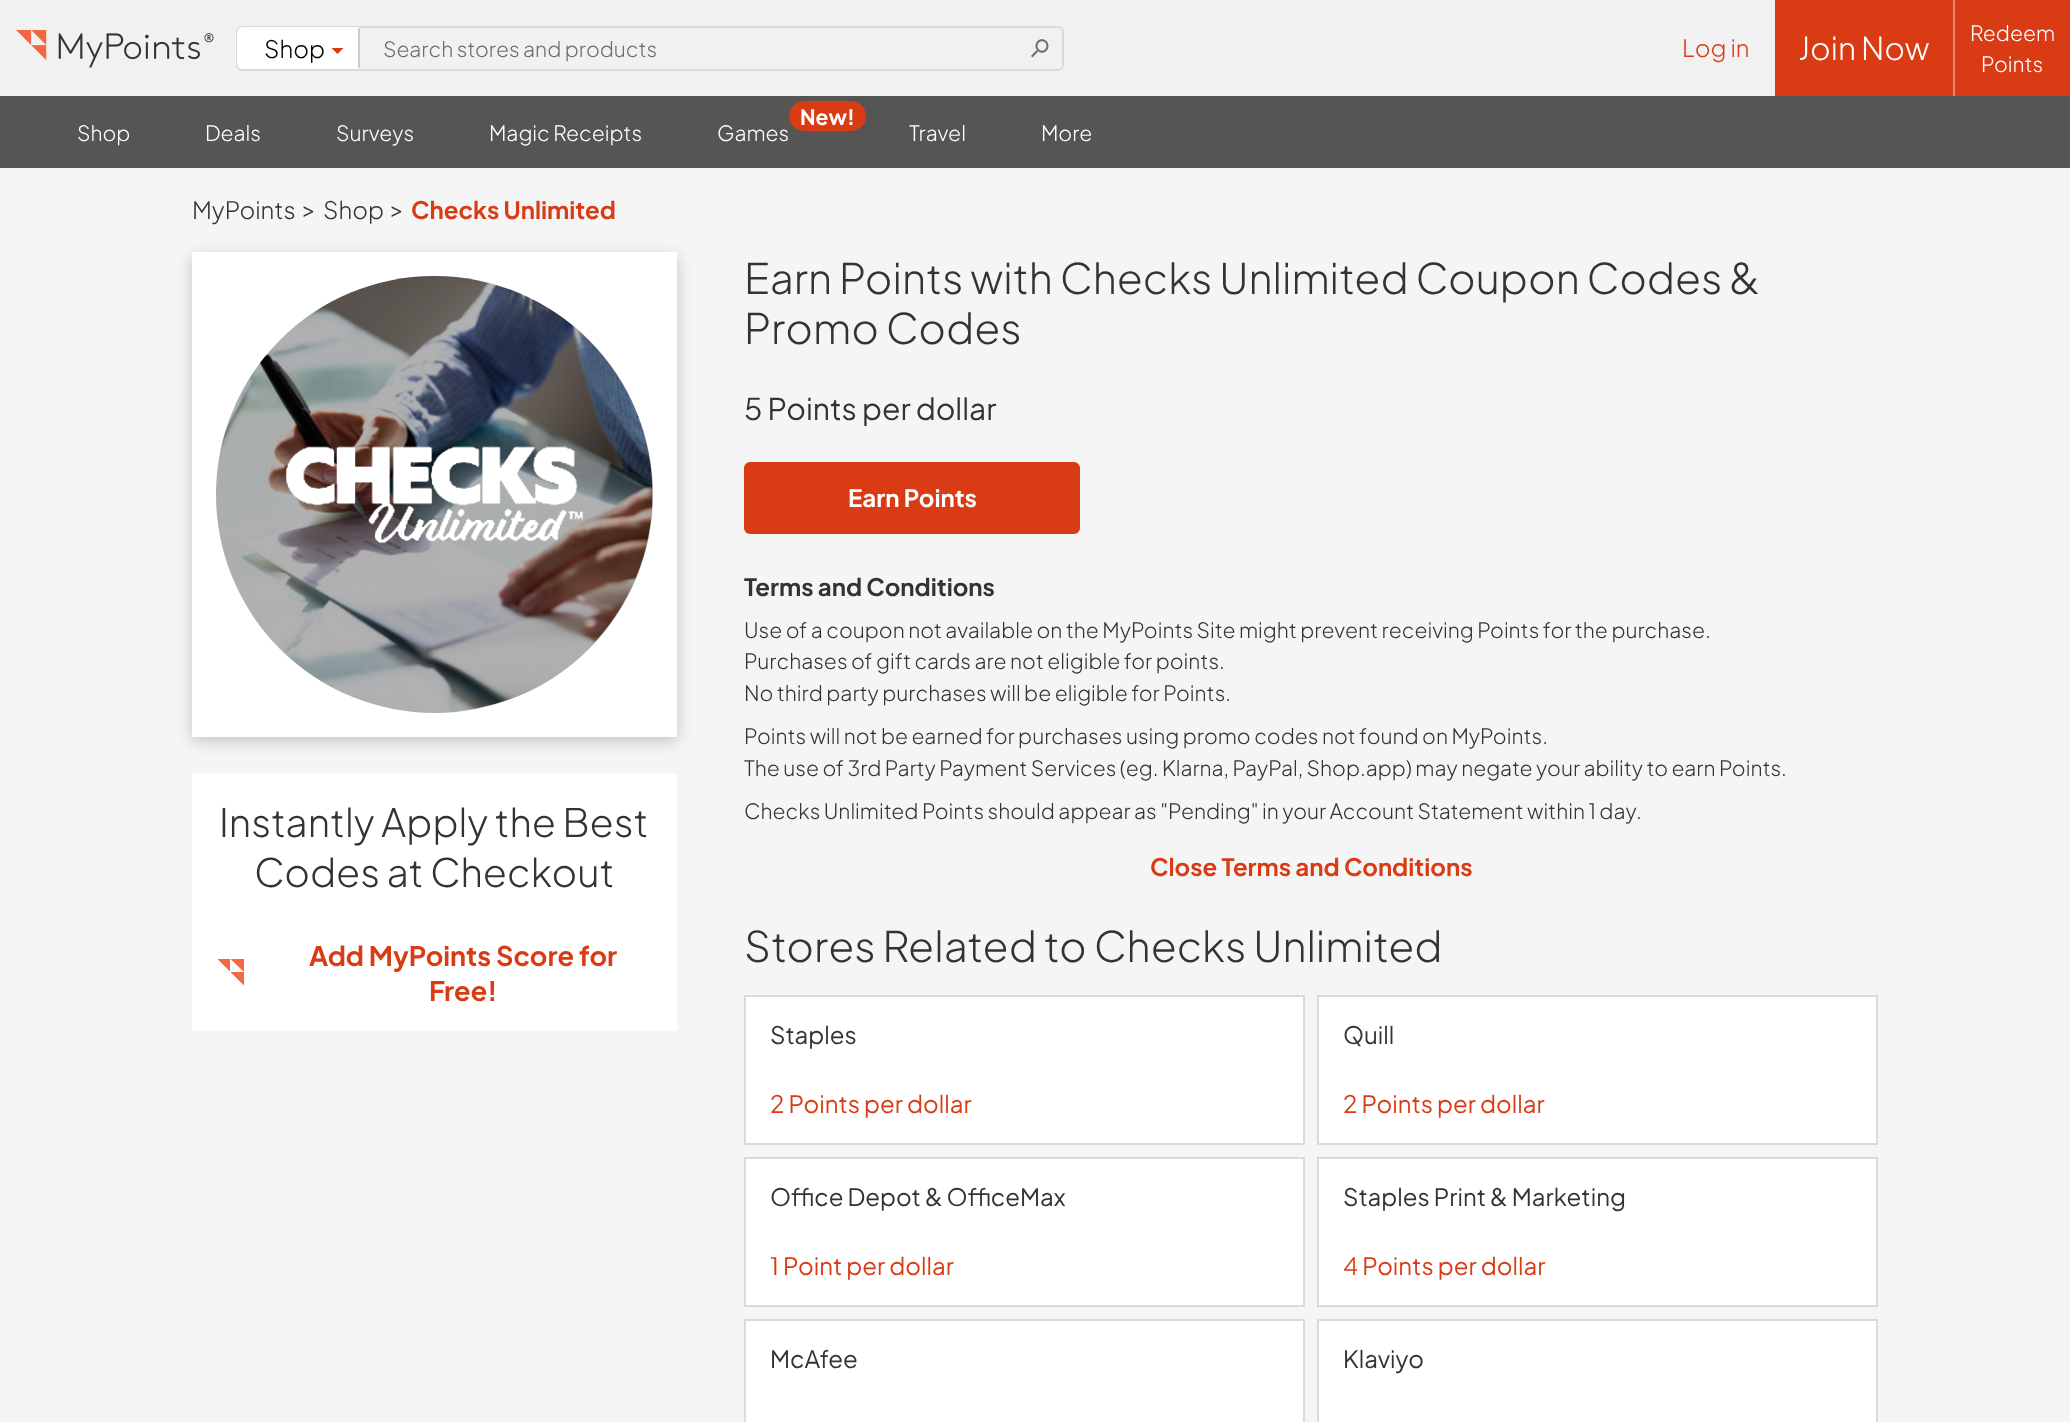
<!DOCTYPE html>
<meta charset="utf-8">
<style>body { margin: 0 } canvas { display: block }</style>
<canvas id="canvas" width="2070" height="1422"></canvas>
<script type="module">
  const canvas = document.getElementById("canvas");
  const g = canvas.getContext("2d");
  g.miterLimit = 4;
  g.fontKerning = "normal";
  function drawText(s, x, y, [font, color]) {
    g.font = font;
    g.fillStyle = color;
    g.fillText(s, x, y);
  }
  function fillBox(x, y, w, h, color) {
    g.fillStyle = color;
    g.fillRect(x, y, w, h);
  }
  function fillRounded(x, y, w, h, r, color) {
    g.fillStyle = color;
    g.beginPath();
    g.roundRect(x, y, w, h, r);
    g.fill();
  }
  async function drawPicture(src, x, y, w, h) {
    const img = new Image();
    img.src = src;
    await img.decode();
    g.drawImage(img, x, y, w, h);
  }

  const s1 = ["300 24px Plus Jakarta Sans", "#000000"];
  const s2 = ["300 21px Plus Jakarta Sans", "#6E6E6E"];
  const s3 = ["300 24px Plus Jakarta Sans", "#D93C15"];
  const s4 = ["300 31.5px Plus Jakarta Sans", "#FFFFFF"];
  const s5 = ["300 21px Plus Jakarta Sans", "#FFFFFF"];
  const s6 = ["bold 21px Plus Jakarta Sans", "#FFFFFF"];
  const s7 = ["300 24px Plus Jakarta Sans", "#333333"];
  const s8 = ["bold 24px Plus Jakarta Sans", "#D93C15"];
  const s9 = ["300 42px Plus Jakarta Sans", "#333333"];
  const s10 = ["30px Plus Jakarta Sans", "#333333"];
  const s11 = ["bold 24px Plus Jakarta Sans", "#FFFFFF"];
  const s12 = ["bold 24px Plus Jakarta Sans", "#333333"];
  const s13 = ["300 21px Plus Jakarta Sans", "#333333"];
  const s14 = ["300 39px Plus Jakarta Sans", "#333333"];
  const s15 = ["bold 27px Plus Jakarta Sans", "#D93C15"];
  const s16 = ["24px Plus Jakarta Sans", "#333333"];
  const s17 = ["24px Plus Jakarta Sans", "#D93C15"];

  fillBox(0, 0, 2070, 1422, "#F5F5F5");
  fillBox(0, 0, 1775, 96, "#F1F1F1");
  await drawPicture("pic1.png", 16, 30, 198, 38);
  g.beginPath();
  g.roundRect(237, 27, 826, 43, 5);
  g.strokeStyle = "#DADADA";
  g.lineWidth = 2;
  g.stroke();
  g.fillStyle = "#FFFFFF";
  g.beginPath();
  g.roundRect(237, 27, 123, 42, [6, 0, 0, 6]);
  g.fill();
  g.fillStyle = "#CCCCCC";
  g.beginPath();
  g.moveTo(360, 27);
  g.lineTo(358, 29);
  g.lineTo(358, 67);
  g.lineTo(360, 69);
  g.closePath();
  g.fill();
  drawText("Shop", 264, 58, s1);
  g.fillStyle = "#D93C15";
  g.beginPath();
  g.moveTo(331.5, 48);
  g.lineTo(343.5, 48);
  g.lineTo(337.5, 54);
  g.closePath();
  g.fill();
  drawText("Search stores and products", 383, 57, s2);
  await drawPicture("pic2.png", 1031, 39, 18, 19);
  drawText("Log in", 1682, 57, s3);
  fillBox(1775, 0, 178, 96, "#D93C15");
  fillBox(1953, 0, 2, 96, "#E88A73");
  drawText("Join Now", 1798, 60, s4);
  fillBox(1955, 0, 115, 96, "#D93C15");
  drawText("Redeem", 1970, 41, s5);
  drawText("Points", 1981, 72, s5);
  fillBox(0, 96, 2070, 72, "#555555");
  drawText("Shop", 77, 141, s5);
  drawText("Deals", 205, 141, s5);
  drawText("Surveys", 336, 141, s5);
  drawText("Magic Receipts", 489, 141, s5);
  fillRounded(789, 101, 77, 30, 15, "#D93C15");
  drawText("New!", 800, 125, s6);
  drawText("Games", 717, 141, s5);
  drawText("Travel", 909, 141, s5);
  drawText("More", 1041, 141, s5);
  drawText("MyPoints", 192, 219, s7);
  drawText(">", 302, 218, s7);
  drawText("Shop", 323, 219, s7);
  drawText(">", 390, 218, s7);
  drawText("Checks Unlimited", 411, 219, s8);
  g.fillStyle = "rgba(0, 0, 0, 0.2)";
  g.filter = "blur(7.5px)";
  g.beginPath();
  g.rect(192, 257, 485, 484);
  g.fill();
  g.filter = "none";
  fillBox(192, 252, 485, 485, "#FFFFFF");
  await drawPicture("pic3.png", 216, 276, 437, 437);
  g.fillStyle = "rgba(0, 0, 0, 0.3)";
  g.beginPath();
  g.arc(434.5, 494.5, 218.5, 0, Math.PI * 2);
  g.fill();
  await drawPicture("pic4.png", 286, 446, 297, 97);
  drawText("Earn Points with Checks Unlimited Coupon Codes &", 744, 294, s9);
  drawText("Promo Codes", 744, 344, s9);
  drawText("5 Points per dollar", 744, 420, s10);
  fillRounded(744, 462, 336, 72, 6, "#D93C15");
  drawText("Earn Points", 848, 507, s11);
  drawText("Terms and Conditions", 744, 596, s12);
  drawText("Use of a coupon not available on the MyPoints Site might prevent receiving Points for the purchase.", 744, 638, s13);
  drawText("Purchases of gift cards are not eligible for points.", 744, 669, s13);
  drawText("No third party purchases will be eligible for Points.", 744, 701, s13);
  drawText("Points will not be earned for purchases using promo codes not found on MyPoints.", 744, 744, s13);
  drawText("The use of 3rd Party Payment Services (eg. Klarna, PayPal, Shop.app) may negate your ability to earn Points.", 744, 776, s13);
  drawText("Checks Unlimited Points should appear as \"Pending\" in your Account Statement within 1 day", 744, 819, s13);
  drawText(".", 1636, 819, s13);
  drawText("Close Terms and Conditions", 1150, 876, s8);
  fillBox(192, 773, 485, 258, "#FFFFFF");
  drawText("Instantly Apply the Best", 219, 837, s14);
  drawText("Codes at Checkout", 254, 887, s14);
  g.save();
  g.beginPath();
  g.rect(216, 959, 29, 27);
  g.clip();
  g.fillStyle = "#F56743";
  g.beginPath();
  g.moveTo(230, 958.5);
  g.lineTo(217, 958.5);
  g.lineTo(244, 985.5);
  g.lineTo(244, 958.5);
  g.closePath();
  g.moveTo(244, 972);
  g.lineTo(230, 958.5);
  g.lineTo(230, 972);
  g.closePath();
  g.fill("evenodd");
  g.restore();
  drawText("Add MyPoints Score for", 309, 966, s15);
  drawText("Free!", 429, 1001, s15);
  drawText("Stores Related to Checks Unlimited", 744, 962, s9);
  g.fillStyle = "#FFFFFF";
  g.beginPath();
  g.rect(745, 996, 559, 148);
  g.fill();
  g.stroke();
  drawText("Staples", 770, 1044, s16);
  drawText("2 Points per dollar", 770, 1113, s17);
  g.fillStyle = "#FFFFFF";
  g.beginPath();
  g.rect(1318, 996, 559, 148);
  g.fill();
  g.stroke();
  drawText("Quill", 1343, 1044, s16);
  drawText("2 Points per dollar", 1343, 1113, s17);
  g.fillStyle = "#FFFFFF";
  g.beginPath();
  g.rect(745, 1158, 559, 148);
  g.fill();
  g.stroke();
  drawText("Office Depot & OfficeMax", 770, 1206, s16);
  drawText("1 Point per dollar", 770, 1275, s17);
  g.fillStyle = "#FFFFFF";
  g.beginPath();
  g.rect(1318, 1158, 559, 148);
  g.fill();
  g.stroke();
  drawText("Staples Print & Marketing", 1343, 1206, s16);
  drawText("4 Points per dollar", 1343, 1275, s17);
  g.fillStyle = "#FFFFFF";
  g.beginPath();
  g.rect(745, 1320, 559, 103);
  g.fill();
  g.stroke();
  drawText("McAfee", 770, 1368, s16);
  g.fillStyle = "#FFFFFF";
  g.beginPath();
  g.rect(1318, 1320, 559, 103);
  g.fill();
  g.stroke();
  drawText("Klaviyo", 1343, 1368, s16);
</script>
